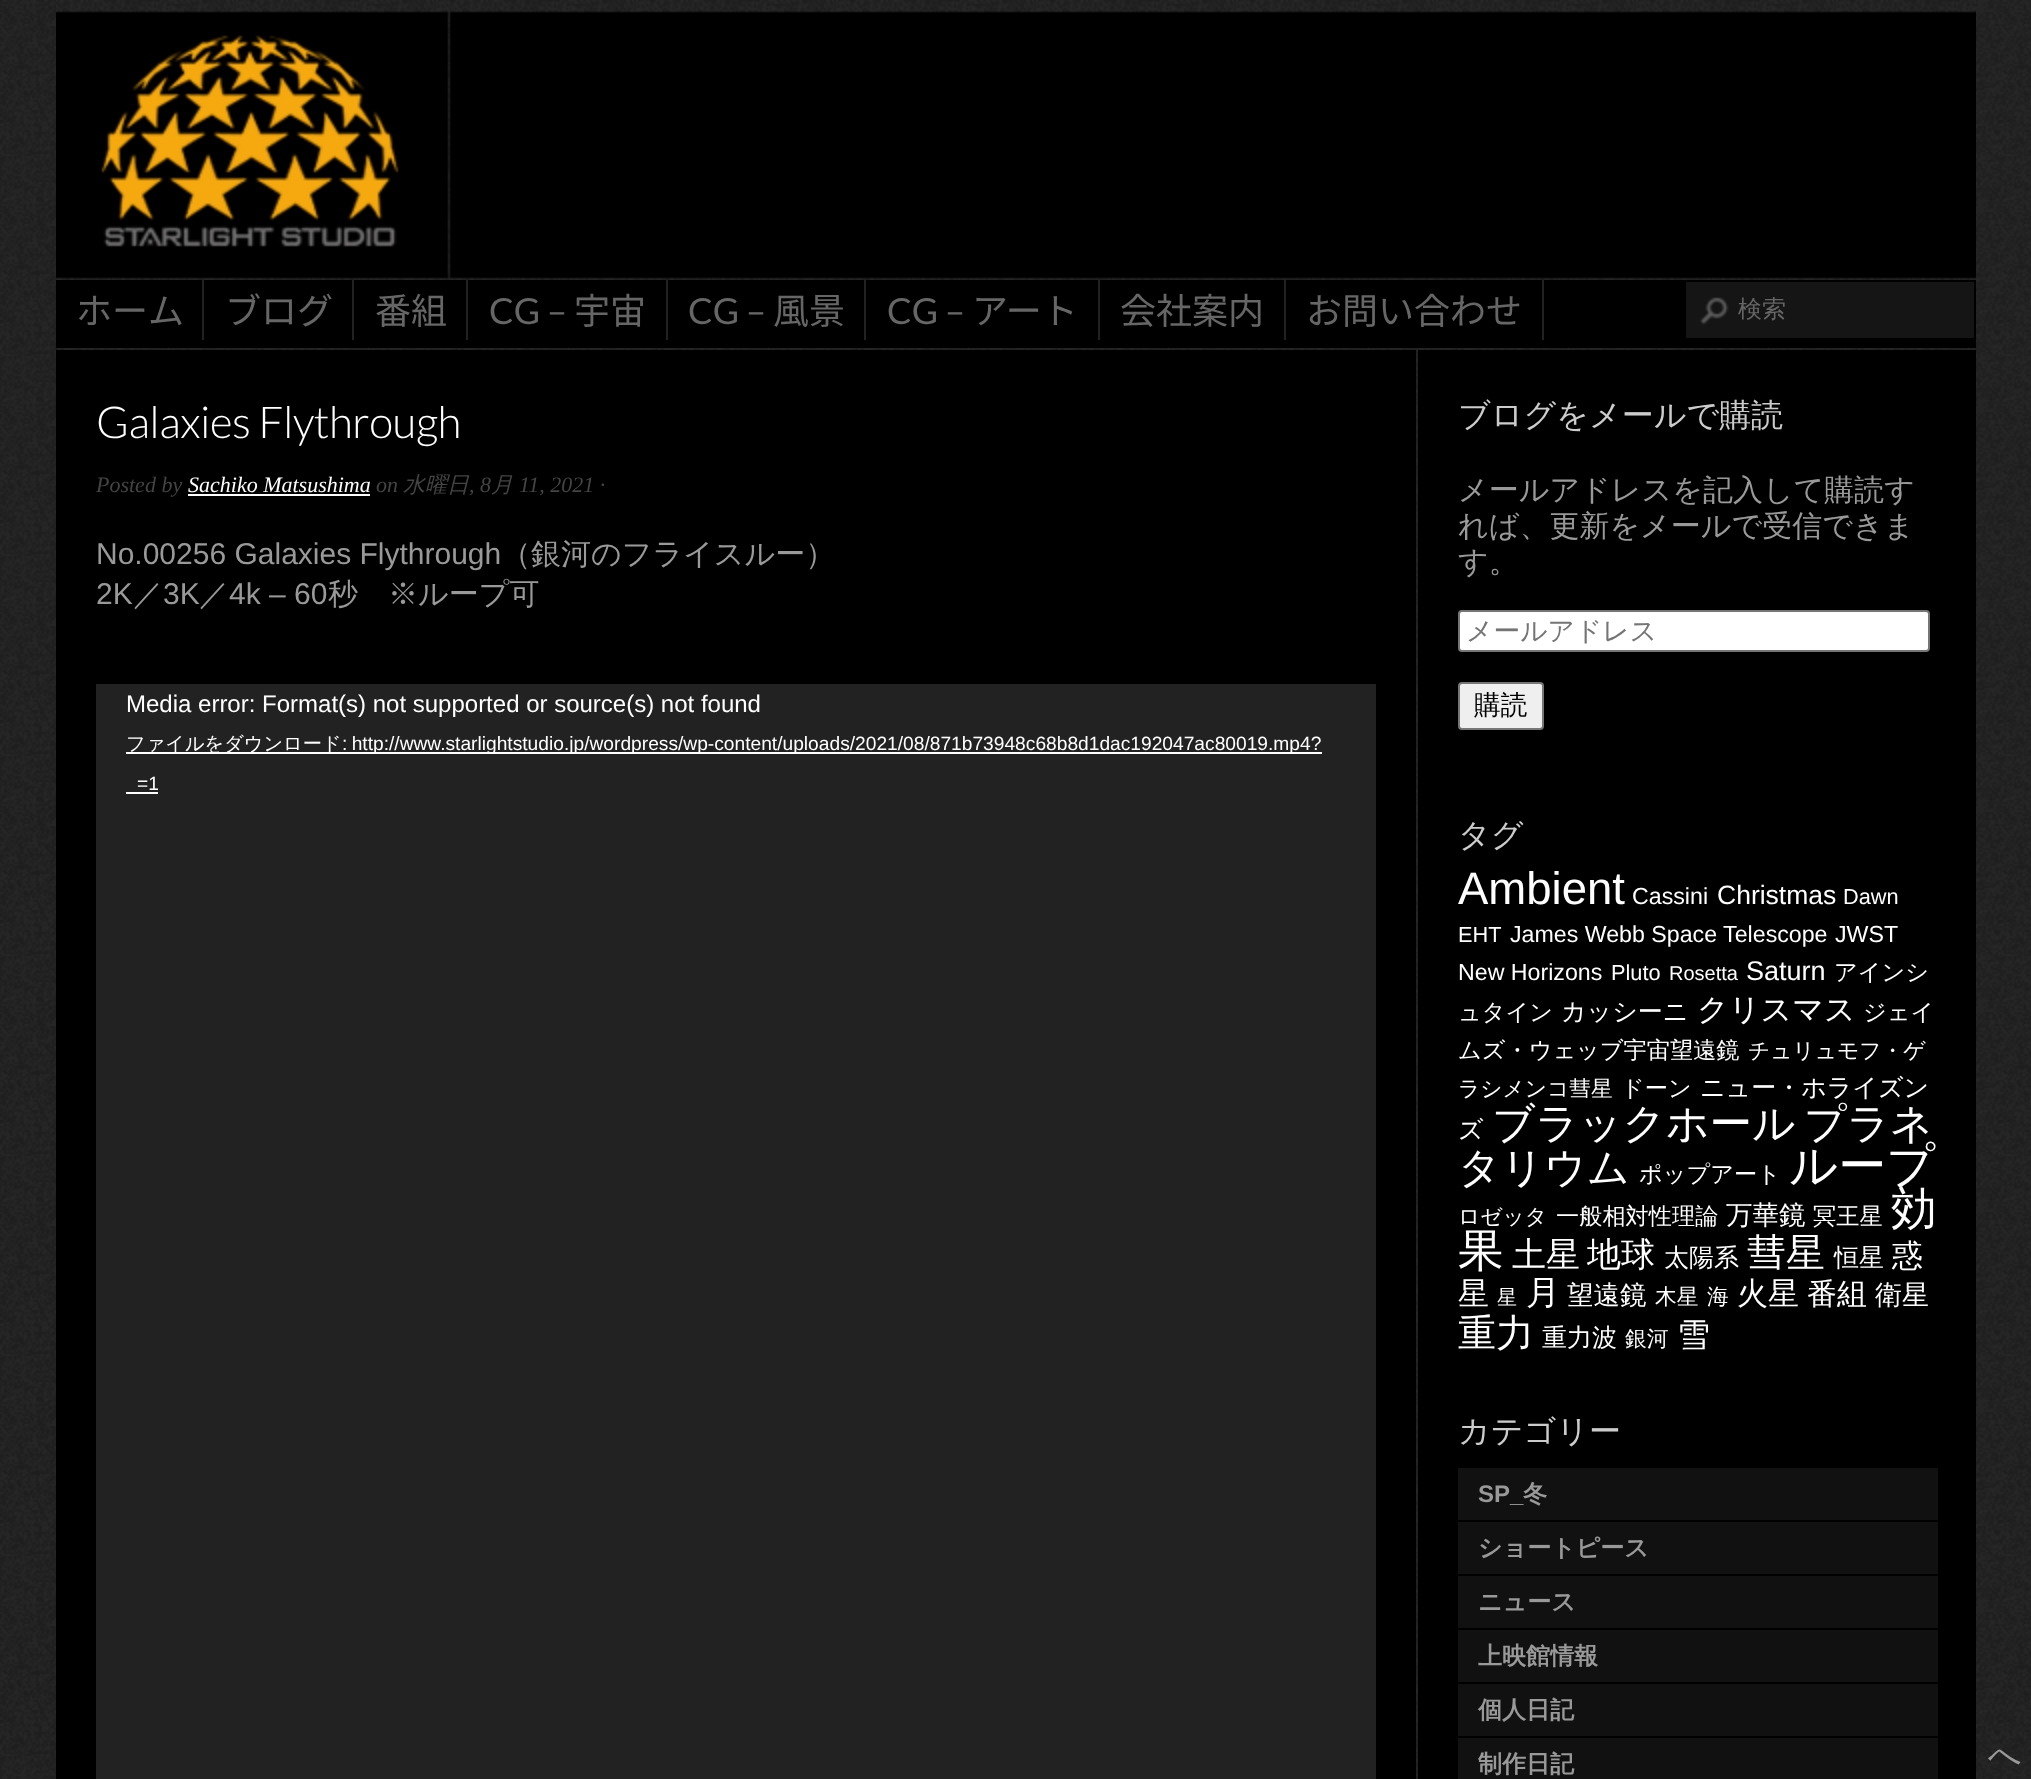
<!DOCTYPE html>
<meta charset="utf-8">
<style>body { margin: 0 } canvas { display: block }</style>
<canvas id="canvas" width="2031" height="1779"></canvas>
<script type="module">
  const canvas = document.getElementById("canvas");
  const g = canvas.getContext("2d");
  g.miterLimit = 4;
  g.fontKerning = "normal";
  function drawText(s, x, y, [font, color]) {
    g.font = font;
    g.fillStyle = color;
    g.fillText(s, x, y);
  }
  function fillBox(x, y, w, h, color) {
    g.fillStyle = color;
    g.fillRect(x, y, w, h);
  }
  async function drawPicture(src, x, y, w, h) {
    const img = new Image();
    img.src = src;
    await img.decode();
    g.drawImage(img, x, y, w, h);
  }

  const s1 = ["36px Noto Sans JP", "#666666"];
  const s2 = ["36px Lato", "#666666"];
  const s3 = ["500 24px WenQuanYi Zen Hei", "#666666"];
  const s4 = ["300 44px Lato", "#FFFFFF"];
  const s5 = ["italic 22px Liberation Serif", "#444444"];
  const s6 = ["italic 22px Liberation Serif", "#FFFFFF"];
  const s7 = ["italic 500 22px WenQuanYi Zen Hei", "#444444"];
  const s8 = ["30px Liberation Sans", "#999999"];
  const s9 = ["500 30px WenQuanYi Zen Hei", "#999999"];
  const s10 = ["24px Liberation Sans", "#FFFFFF"];
  const s11 = ["500 19.2px WenQuanYi Zen Hei", "#FFFFFF"];
  const s12 = ["19.2px Liberation Sans", "#FFFFFF"];
  const s13 = ["500 32px WenQuanYi Zen Hei", "#CCCCCC"];
  const s14 = ["500 26.75px WenQuanYi Zen Hei", "#757575"];
  const s15 = ["500 26.75px WenQuanYi Zen Hei", "#000000"];
  const s16 = ["45.5px Liberation Sans", "#FFFFFF"];
  const s17 = ["23.2px Liberation Sans", "#FFFFFF"];
  const s18 = ["26.5px Liberation Sans", "#FFFFFF"];
  const s19 = ["21.75px Liberation Sans", "#FFFFFF"];
  const s20 = ["20px Liberation Sans", "#FFFFFF"];
  const s21 = ["27px Liberation Sans", "#FFFFFF"];
  const s22 = ["500 23.2px WenQuanYi Zen Hei", "#FFFFFF"];
  const s23 = ["500 25px WenQuanYi Zen Hei", "#FFFFFF"];
  const s24 = ["500 31px WenQuanYi Zen Hei", "#FFFFFF"];
  const s25 = ["500 21.75px WenQuanYi Zen Hei", "#FFFFFF"];
  const s26 = ["500 42.5px WenQuanYi Zen Hei", "#FFFFFF"];
  const s27 = ["500 42px WenQuanYi Zen Hei", "#FFFFFF"];
  const s28 = ["500 48px WenQuanYi Zen Hei", "#FFFFFF"];
  const s29 = ["500 26.5px WenQuanYi Zen Hei", "#FFFFFF"];
  const s30 = ["500 45.5px WenQuanYi Zen Hei", "#FFFFFF"];
  const s31 = ["500 34px WenQuanYi Zen Hei", "#FFFFFF"];
  const s32 = ["500 39px WenQuanYi Zen Hei", "#FFFFFF"];
  const s33 = ["500 20px WenQuanYi Zen Hei", "#FFFFFF"];
  const s34 = ["500 30px WenQuanYi Zen Hei", "#FFFFFF"];
  const s35 = ["500 27px WenQuanYi Zen Hei", "#FFFFFF"];
  const s36 = ["500 38px WenQuanYi Zen Hei", "#FFFFFF"];
  const s37 = ["500 33px WenQuanYi Zen Hei", "#FFFFFF"];
  const s38 = ["bold 24px Liberation Sans", "#999999"];
  const s39 = ["bold 24px WenQuanYi Zen Hei", "#999999"];
  const s40 = ["500 33px WenQuanYi Zen Hei", "#999999"];

  fillBox(0, 0, 2031, 1779, "#FFFFFF");
  await drawPicture("pic1.png", 0, 0, 2031, 1779);
  await drawPicture("pic2.png", 56, 0, 1920, 280);
  fillBox(56, 280, 1920, 68, "#000000");
  fillBox(202, 280, 2, 60, "#222222");
  drawText("ホーム", 76, 324, s1);
  fillBox(352, 280, 2, 60, "#222222");
  drawText("ブログ", 225, 324, s1);
  fillBox(466, 280, 2, 60, "#222222");
  drawText("番組", 375, 324, s1);
  fillBox(666, 280, 2, 60, "#222222");
  drawText("CG –", 489, 324, s2);
  drawText("宇宙", 574, 324, s1);
  fillBox(864, 280, 2, 60, "#222222");
  drawText("CG –", 688, 324, s2);
  drawText("風景", 773, 324, s1);
  fillBox(1098, 280, 2, 60, "#222222");
  drawText("CG –", 887, 324, s2);
  drawText("アート", 972, 324, s1);
  fillBox(1284, 280, 2, 60, "#222222");
  drawText("会社案内", 1120, 324, s1);
  fillBox(1542, 280, 2, 60, "#222222");
  drawText("お問い合わせ", 1306, 324, s1);
  fillBox(1686, 282, 288, 56, "#151515");
  await drawPicture("pic3.png", 1700, 297, 29, 28);
  drawText("検索", 1738, 317, s3);
  fillBox(56, 350, 1360, 1429, "#000000");
  g.letterSpacing = "-0.5px";
  drawText("Galaxies Flythrough", 96, 438, s4);
  g.letterSpacing = "0px";
  drawText("Posted by", 96, 492, s5);
  drawText("Sachiko Matsushima", 188, 492, s6);
  fillBox(188, 494, 182, 2, "#FFFFFF");
  drawText("on", 376, 492, s5);
  drawText("水曜日", 403, 492, s7);
  drawText(", 8", 469, 492, s5);
  drawText("月", 491, 492, s7);
  drawText("11, 2021 ·", 519, 492, s5);
  drawText("No.00256 Galaxies Flythrough", 96, 564, s8);
  drawText("（銀河のフライスルー）", 501, 564, s9);
  drawText("2K", 96, 604, s8);
  drawText("／", 133, 604, s9);
  drawText("3K", 163, 604, s8);
  drawText("／", 199, 604, s9);
  drawText("4k – 60", 229, 604, s8);
  drawText("秒　※ループ可", 328, 604, s9);
  fillBox(96, 684, 1280, 1095, "#222222");
  drawText("Media error: Format(s) not supported or source(s) not found", 126, 712, s10);
  fillBox(126, 752, 1196, 2, "#FFFFFF");
  drawText("ファイルをダウンロード", 126, 750, s11);
  g.wordSpacing = "-1px";
  drawText(": http://www.starlightstudio.jp/wordpress/wp-content/uploads/2021/08/871b73948c68b8d1dac192047ac80019.mp4?", 342, 750, s12);
  g.wordSpacing = "0px";
  drawText("=1", 137, 790, s12);
  fillBox(126, 792, 32, 2, "#FFFFFF");
  fillBox(1418, 350, 558, 1429, "#000000");
  drawText("ブログをメールで購読", 1458, 426, s13);
  drawText("メールアドレスを記入して購読す", 1458, 500, s9);
  drawText("れば、更新をメールで受信できま", 1458, 536, s9);
  drawText("す。", 1458, 572, s9);
  g.fillStyle = "#FFFFFF";
  g.beginPath();
  g.roundRect(1459, 611, 470, 40, 3);
  g.fill();
  g.strokeStyle = "#767676";
  g.lineWidth = 2;
  g.stroke();
  drawText("メールアドレス", 1466, 640, s14);
  g.fillStyle = "#EFEFEF";
  g.beginPath();
  g.roundRect(1459, 683, 84, 46, 3);
  g.fill();
  g.stroke();
  drawText("購読", 1474, 714, s15);
  drawText("タグ", 1458, 846, s13);
  drawText("Ambient", 1458, 904, s16);
  drawText("Cassini", 1632, 904, s17);
  drawText("Christmas", 1717, 904, s18);
  drawText("Dawn", 1843, 904, s19);
  drawText("EHT", 1458, 942, s19);
  drawText("James Webb Space Telescope", 1510, 942, s17);
  drawText("JWST", 1835, 942, s17);
  drawText("New Horizons", 1458, 980, s17);
  drawText("Pluto", 1611, 980, s19);
  drawText("Rosetta", 1669, 980, s20);
  drawText("Saturn", 1746, 980, s21);
  drawText("アインシ", 1834, 980, s22);
  drawText("ュタイン", 1458, 1020, s22);
  drawText("カッシーニ", 1561, 1020, s23);
  drawText("クリスマス", 1697, 1020, s24);
  drawText("ジェイ", 1863, 1020, s22);
  drawText("ムズ・ウェッブ宇宙望遠鏡", 1458, 1058, s22);
  drawText("チュリュモフ・ゲ", 1748, 1058, s25);
  drawText("ラシメンコ彗星", 1458, 1096, s25);
  drawText("ドーン", 1621, 1096, s22);
  drawText("ニュー・ホライズン", 1700, 1096, s23);
  drawText("ズ", 1458, 1138, s23);
  drawText("ブラックホール", 1492, 1138, s26);
  drawText("プラネ", 1804, 1138, s27);
  drawText("タリウム", 1458, 1182, s27);
  drawText("ポップアート", 1639, 1182, s22);
  drawText("ループ", 1789, 1182, s28);
  drawText("ロゼッタ", 1458, 1224, s25);
  drawText("一般相対性理論", 1556, 1224, s22);
  drawText("万華鏡", 1726, 1224, s29);
  drawText("冥王星", 1813, 1224, s22);
  drawText("効", 1891, 1224, s30);
  drawText("果", 1458, 1266, s30);
  drawText("土星", 1512, 1266, s31);
  drawText("地球", 1587, 1266, s31);
  drawText("太陽系", 1664, 1266, s23);
  drawText("彗星", 1747, 1266, s32);
  drawText("恒星", 1834, 1266, s23);
  drawText("惑", 1892, 1266, s24);
  drawText("星", 1458, 1304, s24);
  drawText("星", 1497, 1304, s33);
  drawText("月", 1526, 1304, s31);
  drawText("望遠鏡", 1567, 1304, s29);
  drawText("木星", 1655, 1304, s25);
  drawText("海", 1707, 1304, s25);
  drawText("火星", 1737, 1304, s24);
  drawText("番組", 1807, 1304, s34);
  drawText("衛星", 1875, 1304, s35);
  drawText("重力", 1458, 1346, s36);
  drawText("重力波", 1542, 1346, s23);
  drawText("銀河", 1625, 1346, s25);
  drawText("雪", 1677, 1346, s37);
  drawText("カテゴリー", 1458, 1442, s13);
  fillBox(1458, 1468, 480, 52, "#111111");
  drawText("SP_", 1478, 1502, s38);
  drawText("冬", 1523, 1502, s39);
  fillBox(1458, 1522, 480, 52, "#111111");
  drawText("ショートピース", 1478, 1556, s39);
  fillBox(1458, 1576, 480, 52, "#111111");
  drawText("ニュース", 1478, 1610, s39);
  fillBox(1458, 1630, 480, 52, "#111111");
  drawText("上映館情報", 1478, 1664, s39);
  fillBox(1458, 1684, 480, 52, "#111111");
  drawText("個人日記", 1478, 1718, s39);
  fillBox(1458, 1738, 480, 41, "#111111");
  drawText("制作日記", 1478, 1772, s39);
  drawText("へ", 1988, 1766, s40);
</script>
